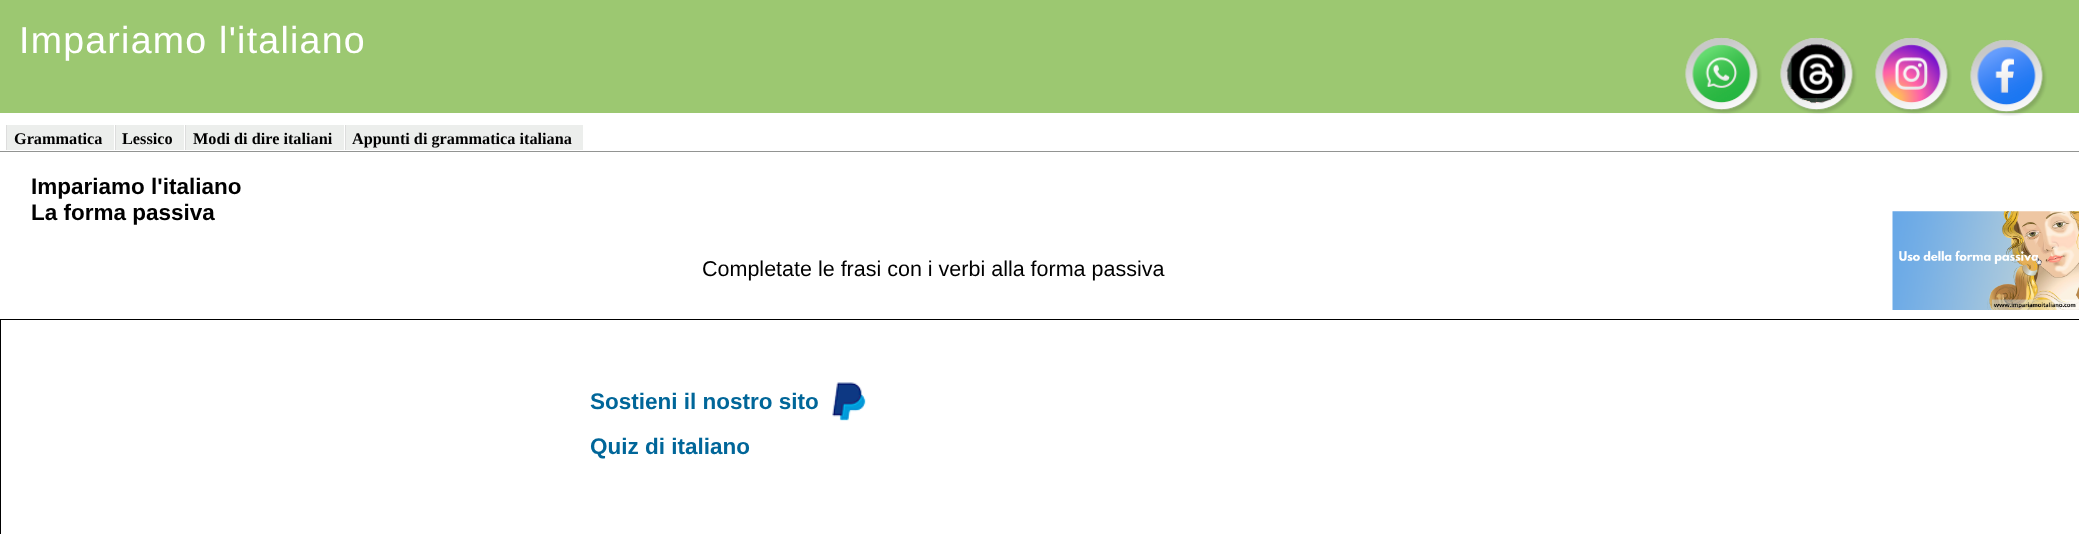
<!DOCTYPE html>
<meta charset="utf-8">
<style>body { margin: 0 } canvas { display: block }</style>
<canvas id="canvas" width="2079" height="534"></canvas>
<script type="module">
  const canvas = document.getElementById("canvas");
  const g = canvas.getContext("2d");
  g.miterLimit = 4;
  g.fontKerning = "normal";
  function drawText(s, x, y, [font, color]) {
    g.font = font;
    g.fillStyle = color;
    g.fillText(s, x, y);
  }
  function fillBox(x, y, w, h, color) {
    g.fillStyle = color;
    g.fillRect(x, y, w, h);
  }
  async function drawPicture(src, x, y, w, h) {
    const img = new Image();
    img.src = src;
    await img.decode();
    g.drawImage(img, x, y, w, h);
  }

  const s1 = ["37.5px Liberation Sans", "#FFFFFF"];
  const s2 = ["bold 16.25px Liberation Serif", "#000000"];
  const s3 = ["bold 22.5px Liberation Sans", "#000000"];
  const s4 = ["21.5px Liberation Sans", "#000000"];
  const s5 = ["bold 22.5px Liberation Sans", "#006699"];

  fillBox(0, 0, 2079, 534, "#FFFFFF");
  fillBox(0, 0, 2079, 113, "#9CC871");
  g.letterSpacing = "1.25px";
  drawText("Impariamo l'italiano", 19, 53, s1);
  fillBox(0, 151, 2079, 1, "#929492");
  fillBox(7, 125, 107, 25, "#ECEEEC");
  g.letterSpacing = "0px";
  drawText("Grammatica", 14, 144, s2);
  fillBox(6, 125, 1, 25, "#DDDDDD");
  fillBox(116, 125, 68, 25, "#ECEEEC");
  drawText("Lessico", 122, 144, s2);
  fillBox(115, 125, 1, 25, "#DDDDDD");
  fillBox(186, 125, 158, 25, "#ECEEEC");
  drawText("Modi di dire italiani", 193, 144, s2);
  fillBox(185, 125, 1, 25, "#DDDDDD");
  fillBox(346, 125, 237, 25, "#ECEEEC");
  drawText("Appunti di grammatica italiana", 352, 144, s2);
  fillBox(345, 125, 1, 25, "#DDDDDD");
  drawText("Impariamo l'italiano", 31, 194, s3);
  drawText("La forma passiva", 31, 220, s3);
  drawText("Completate le frasi con i verbi alla forma passiva", 702, 276, s4);
  await drawPicture("pic1.png", 1892, 211, 187, 99);
  g.strokeStyle = "#000000";
  g.strokeRect(0.5, 319.5, 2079, 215);
  drawText("Sostieni il nostro sito", 590, 409, s5);
  await drawPicture("pic2.png", 832, 382, 34, 39);
  drawText("Quiz di italiano", 590, 454, s5);
  await drawPicture("pic3.png", 1685, 37, 77, 77);
  await drawPicture("pic4.png", 1780, 37, 77, 77);
  await drawPicture("pic5.png", 1875, 37, 77, 77);
  await drawPicture("pic6.png", 1970, 39, 77, 77);
</script>
